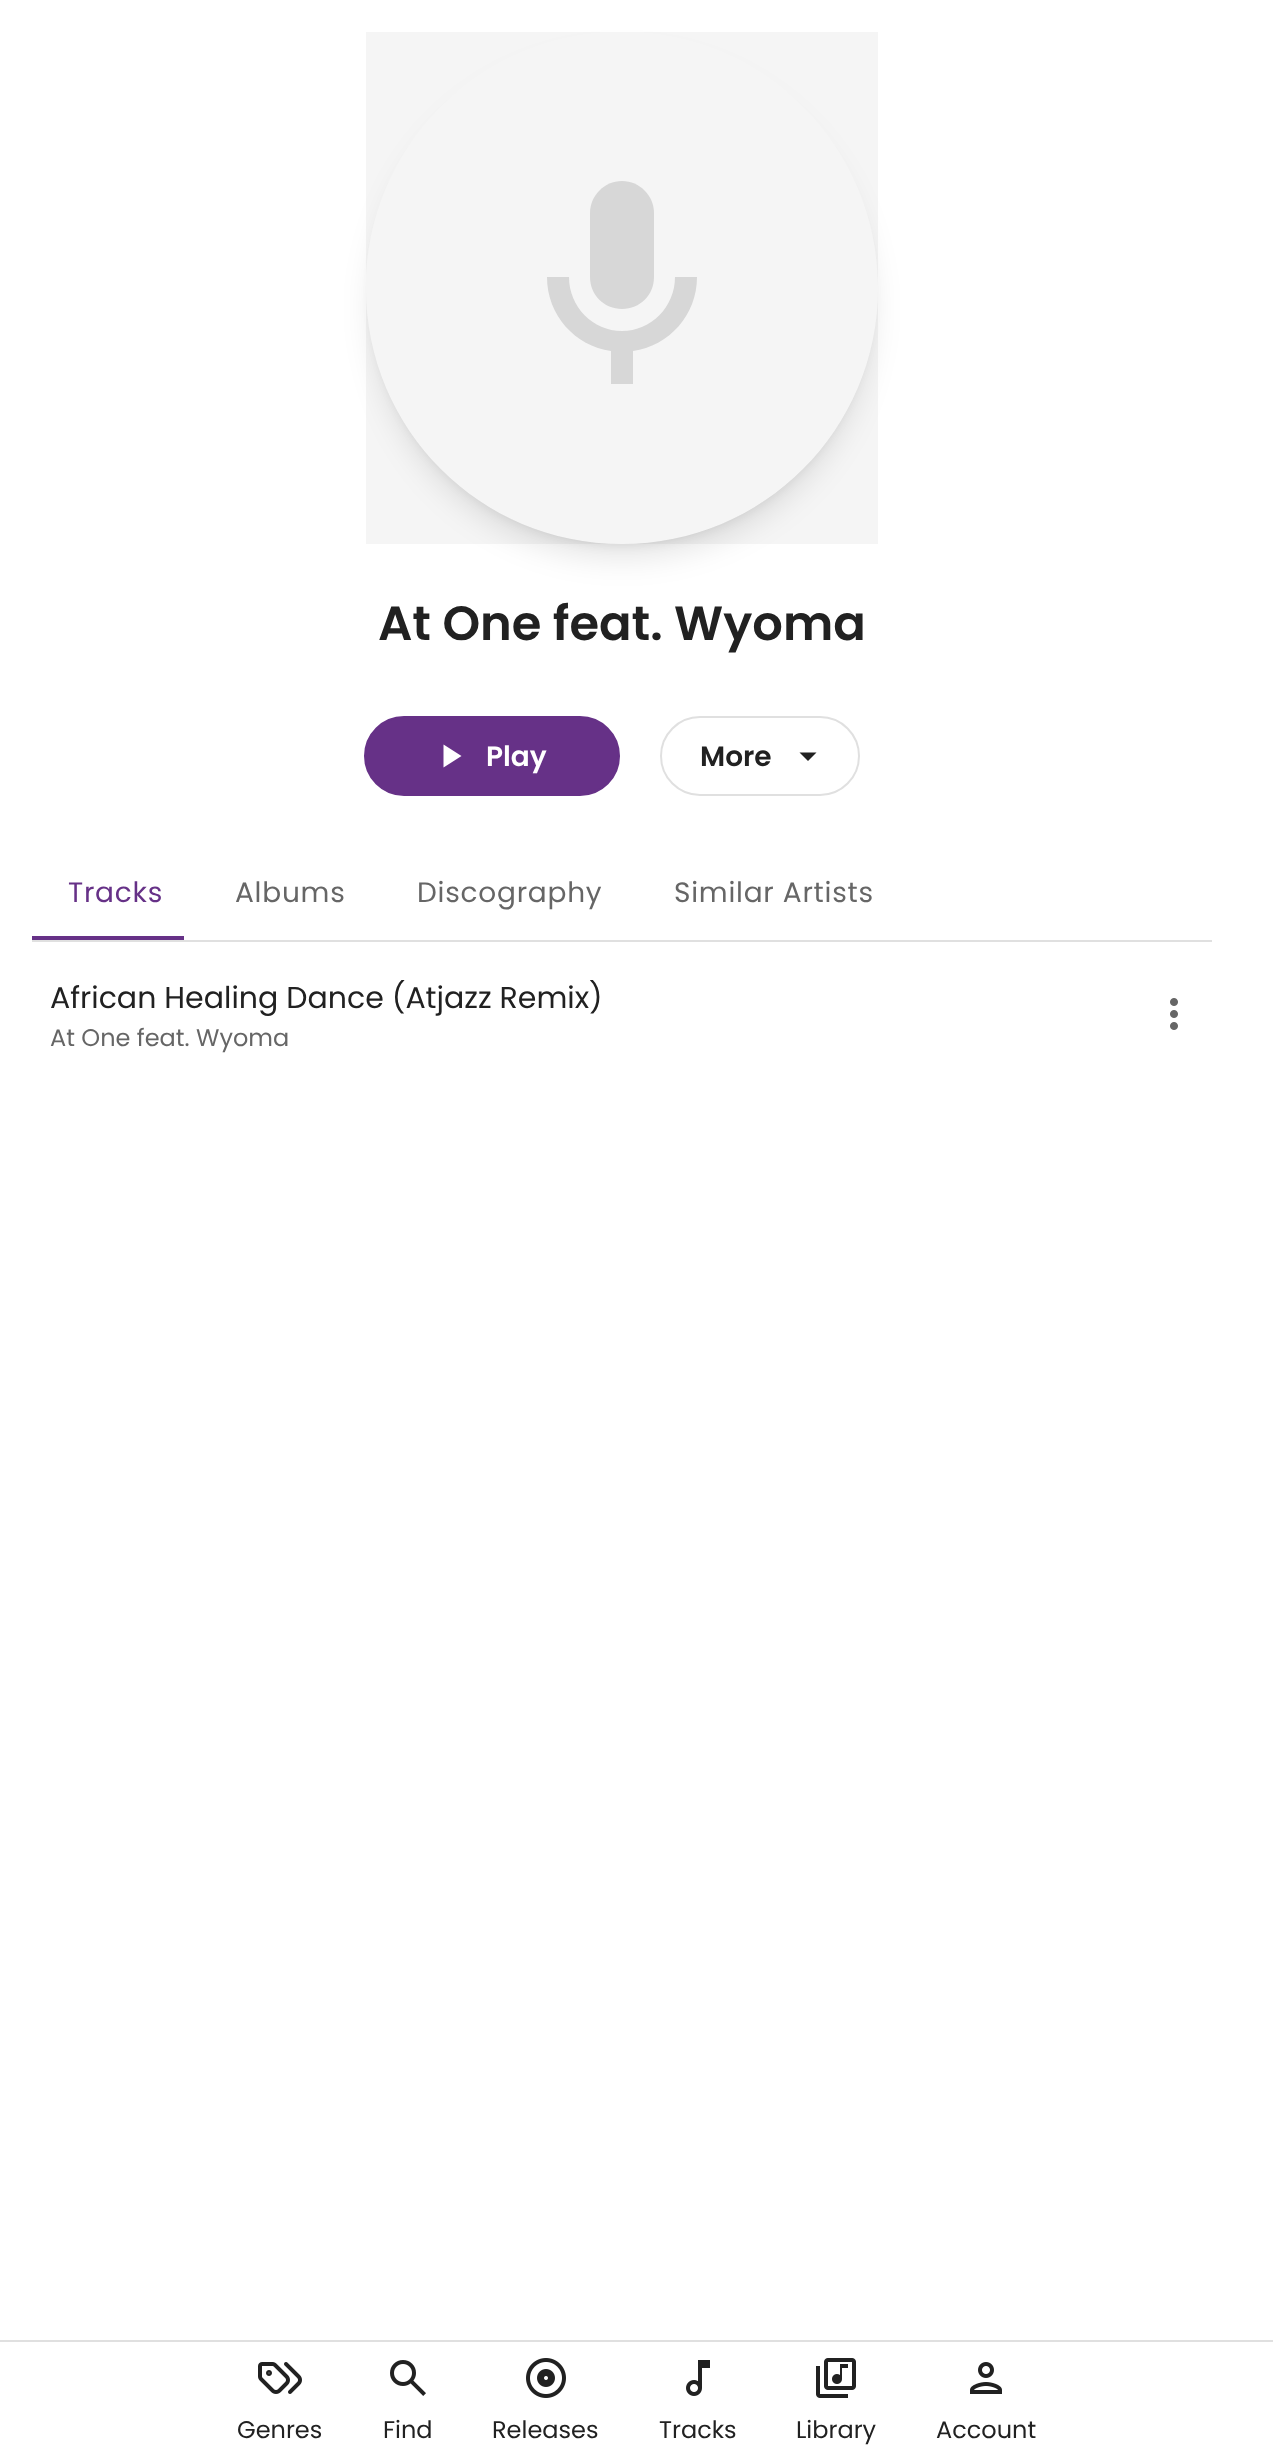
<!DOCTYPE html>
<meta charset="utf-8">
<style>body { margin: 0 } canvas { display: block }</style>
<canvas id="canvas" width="1273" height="2458"></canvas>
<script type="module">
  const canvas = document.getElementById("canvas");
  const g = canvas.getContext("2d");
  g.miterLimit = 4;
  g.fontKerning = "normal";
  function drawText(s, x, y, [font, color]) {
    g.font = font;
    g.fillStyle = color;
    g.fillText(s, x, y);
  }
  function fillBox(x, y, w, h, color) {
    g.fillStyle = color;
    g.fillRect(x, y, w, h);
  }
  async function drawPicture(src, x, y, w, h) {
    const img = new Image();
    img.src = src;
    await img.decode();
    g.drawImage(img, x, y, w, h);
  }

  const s1 = ["600 48px Poppins", "#212121"];
  const s2 = ["600 28px Poppins", "#FFFFFF"];
  const s3 = ["600 28px Poppins", "#212121"];
  const s4 = ["28px Poppins", "#663187"];
  const s5 = ["28px Poppins", "#666666"];
  const s6 = ["30px Poppins", "#212121"];
  const s7 = ["24px Poppins", "#666666"];
  const s8 = ["24px Poppins", "#212121"];

  fillBox(0, 0, 1273, 2458, "#FFFFFF");
  g.save();
  g.beginPath();
  g.moveTo(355, 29);
  g.lineTo(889, 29);
  g.lineTo(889, 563);
  g.lineTo(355, 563);
  g.closePath();
  g.moveTo(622, 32);
  g.bezierCurveTo(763.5, 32, 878, 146.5, 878, 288);
  g.bezierCurveTo(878, 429.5, 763.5, 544, 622, 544);
  g.bezierCurveTo(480.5, 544, 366, 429.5, 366, 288);
  g.bezierCurveTo(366, 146.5, 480.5, 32, 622, 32);
  g.closePath();
  g.clip("evenodd");
  g.fillStyle = "rgba(0, 0, 0, 0.1)";
  g.filter = "blur(6px)";
  g.beginPath();
  g.roundRect(374, 48, 496, 496, 248);
  g.fill();
  g.filter = "none";
  g.restore();
  g.save();
  g.beginPath();
  g.moveTo(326, 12);
  g.lineTo(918, 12);
  g.lineTo(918, 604);
  g.lineTo(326, 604);
  g.closePath();
  g.moveTo(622, 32);
  g.bezierCurveTo(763.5, 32, 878, 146.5, 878, 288);
  g.bezierCurveTo(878, 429.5, 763.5, 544, 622, 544);
  g.bezierCurveTo(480.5, 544, 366, 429.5, 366, 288);
  g.bezierCurveTo(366, 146.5, 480.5, 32, 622, 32);
  g.closePath();
  g.clip("evenodd");
  g.fillStyle = "rgba(0, 0, 0, 0.1)";
  g.filter = "blur(15px)";
  g.beginPath();
  g.roundRect(372, 58, 500, 500, 250);
  g.fill();
  g.filter = "none";
  g.restore();
  fillBox(366, 32, 512, 512, "rgba(0, 0, 0, 0.04)");
  g.fillStyle = "#D7D7D7";
  g.beginPath();
  g.moveTo(622, 309);
  g.bezierCurveTo(640, 309, 654, 295, 654, 277);
  g.lineTo(654, 213);
  g.bezierCurveTo(654, 196, 640, 181, 622, 181);
  g.bezierCurveTo(604, 181, 590, 196, 590, 213);
  g.lineTo(590, 277);
  g.bezierCurveTo(590, 295, 604, 309, 622, 309);
  g.closePath();
  g.fill();
  g.beginPath();
  g.moveTo(675, 277);
  g.bezierCurveTo(675, 307, 651, 331, 622, 331);
  g.bezierCurveTo(593, 331, 569, 307, 569, 277);
  g.lineTo(547, 277);
  g.bezierCurveTo(547, 315, 575, 346, 611, 351);
  g.lineTo(611, 384);
  g.lineTo(633, 384);
  g.lineTo(633, 351);
  g.bezierCurveTo(669, 346, 697, 315, 697, 277);
  g.closePath();
  g.fill();
  drawText("At One feat. Wyoma", 378, 640, s1);
  g.fillStyle = "#663187";
  g.beginPath();
  g.roundRect(365, 717, 254, 78, 39);
  g.fill();
  g.strokeStyle = "#663187";
  g.lineWidth = 2;
  g.stroke();
  g.fillStyle = "#FFFFFF";
  g.beginPath();
  g.moveTo(443.5, 767.5);
  g.lineTo(443.5, 744.5);
  g.lineTo(461.5, 756);
  g.closePath();
  g.fill();
  drawText("Play", 486, 766, s2);
  g.beginPath();
  g.roundRect(661, 717, 198, 78, 39);
  g.strokeStyle = "#E0E0E0";
  g.stroke();
  drawText("More", 700, 766, s3);
  g.beginPath();
  g.moveTo(799.5, 752.5);
  g.lineTo(808, 761);
  g.lineTo(816.5, 752.5);
  g.closePath();
  g.fill();
  fillBox(32, 940, 1180, 2, "#E0E0E0");
  g.letterSpacing = "0.75px";
  drawText("Tracks", 68, 902, s4);
  drawText("Albums", 235, 902, s5);
  drawText("Discography", 417, 902, s5);
  drawText("Similar Artists", 674, 902, s5);
  fillBox(32, 936, 152, 4, "#663187");
  g.letterSpacing = "0px";
  drawText("African Healing Dance (Atjazz Remix)", 50, 1008, s6);
  drawText("At One feat. Wyoma", 50, 1046, s7);
  await drawPicture("pic1.png", 1170, 998, 8, 32);
  fillBox(0, 2340, 1273, 2, "#E0E0E0");
  await drawPicture("pic2.png", 258, 2362, 44, 32);
  drawText("Genres", 237, 2438, s8);
  await drawPicture("pic3.png", 390, 2360, 36, 36);
  drawText("Find", 383, 2438, s8);
  await drawPicture("pic4.png", 526, 2358, 40, 40);
  drawText("Releases", 492, 2438, s8);
  await drawPicture("pic5.png", 686, 2360, 24, 36);
  drawText("Tracks", 659, 2438, s8);
  await drawPicture("pic6.png", 816, 2358, 40, 40);
  drawText("Library", 796, 2438, s8);
  await drawPicture("pic7.png", 970, 2362, 32, 32);
  drawText("Account", 936, 2438, s8);
</script>
